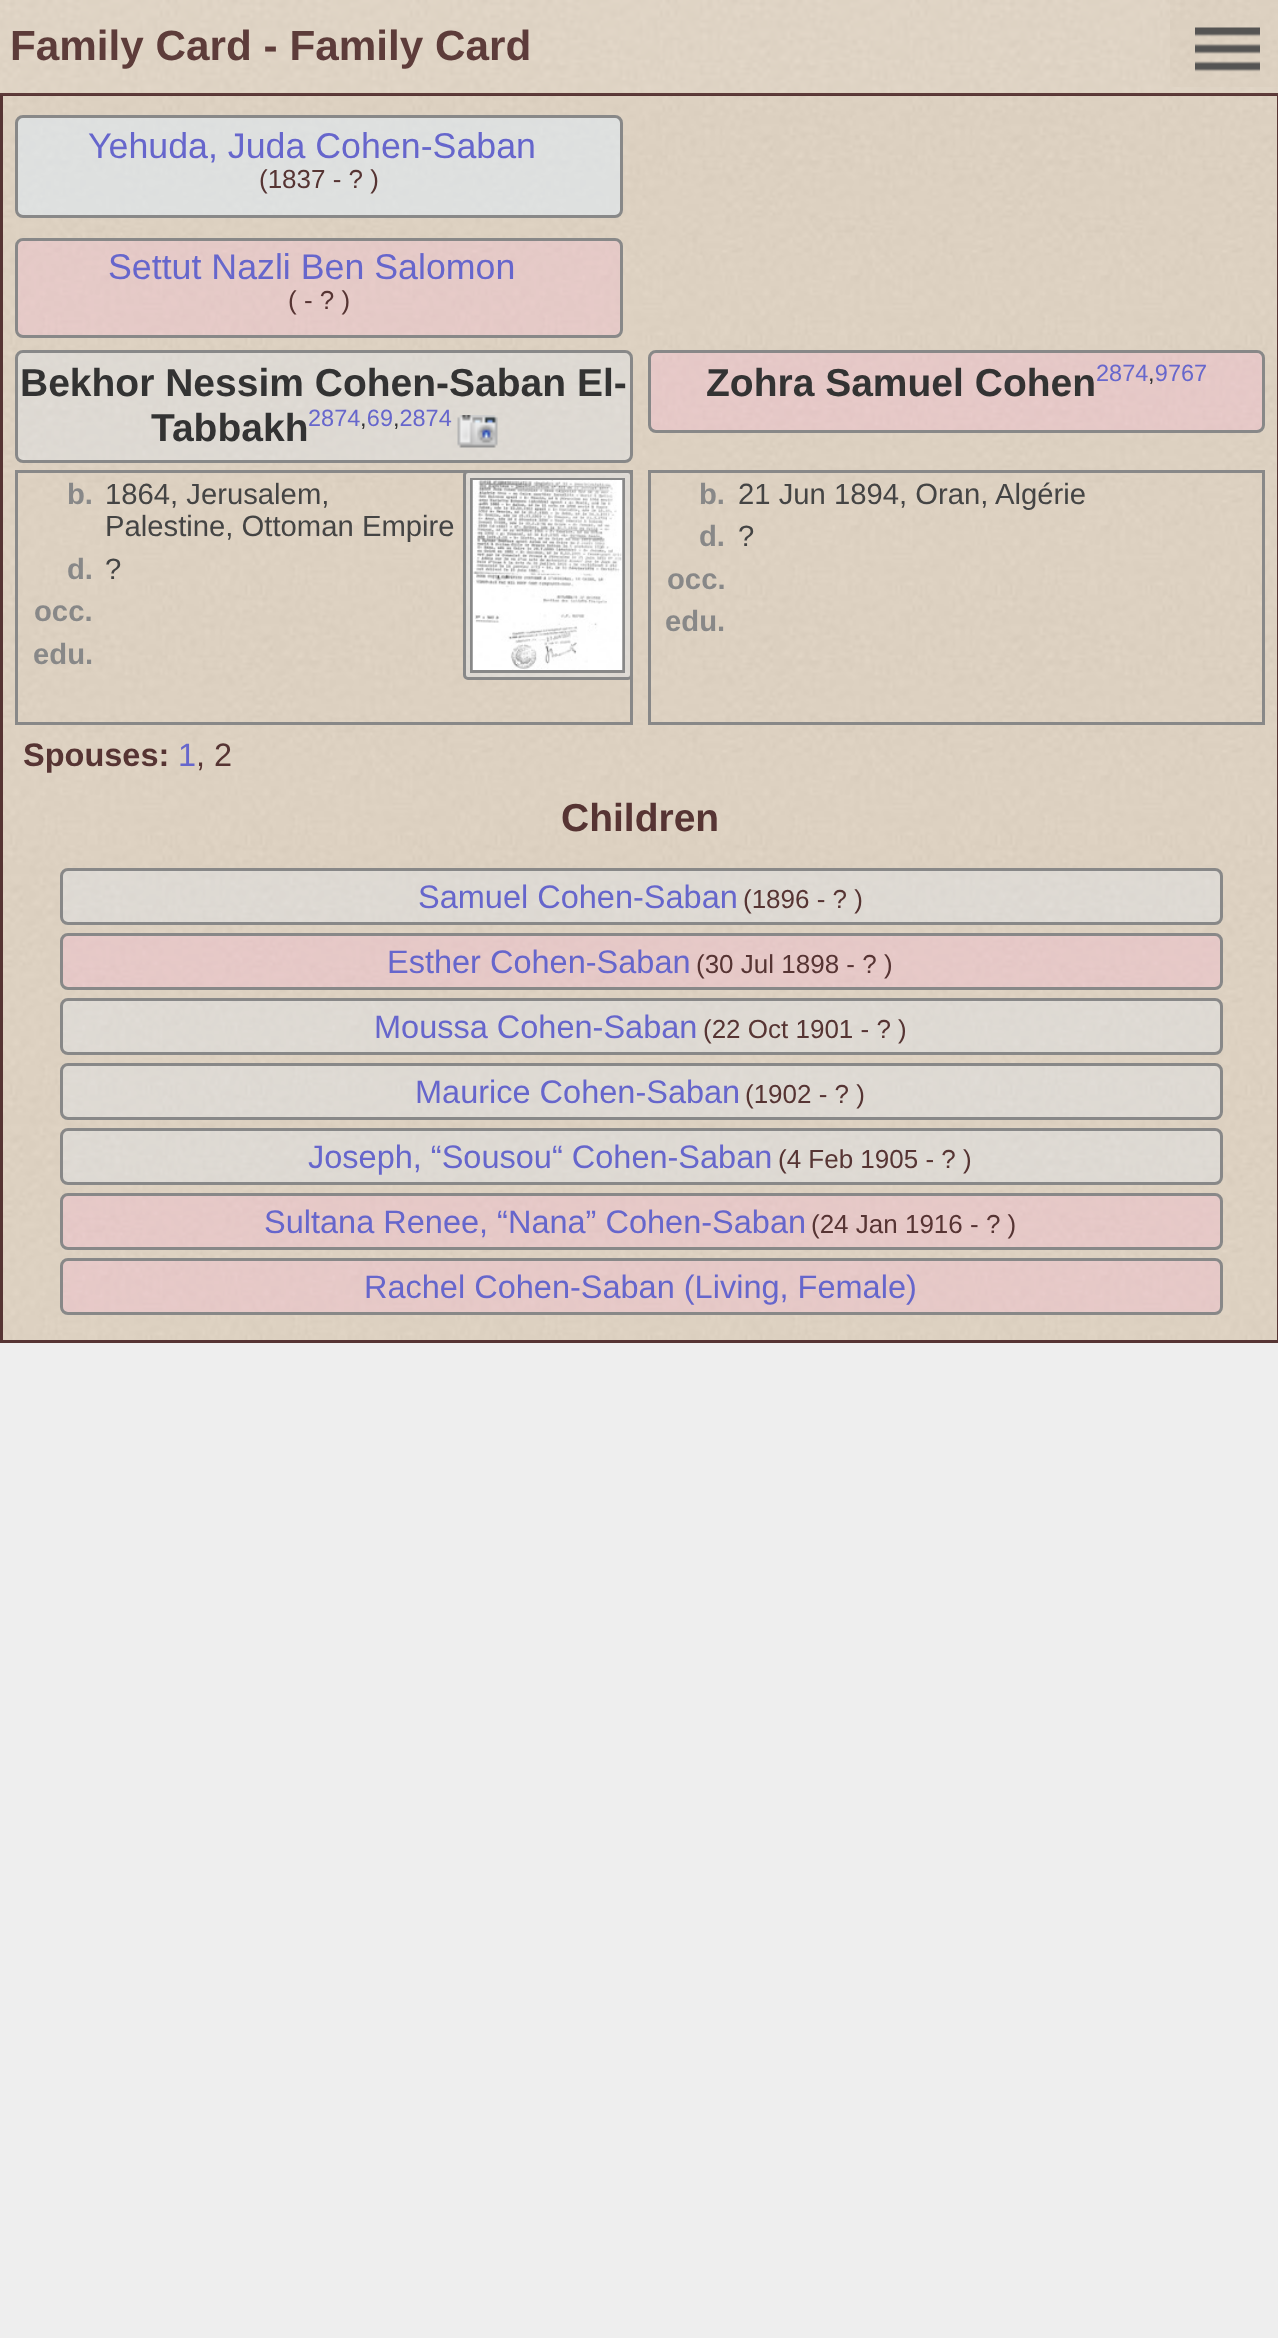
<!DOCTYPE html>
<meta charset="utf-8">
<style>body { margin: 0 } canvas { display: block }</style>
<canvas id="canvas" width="1278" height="2338"></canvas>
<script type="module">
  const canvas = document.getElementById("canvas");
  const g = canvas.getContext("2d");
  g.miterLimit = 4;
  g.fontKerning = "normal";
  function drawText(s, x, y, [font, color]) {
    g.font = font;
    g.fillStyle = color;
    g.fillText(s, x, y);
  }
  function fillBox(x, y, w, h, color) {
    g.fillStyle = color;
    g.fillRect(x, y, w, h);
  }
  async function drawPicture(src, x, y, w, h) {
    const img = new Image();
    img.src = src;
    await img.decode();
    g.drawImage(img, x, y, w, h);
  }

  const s1 = ["bold 42.25px Liberation Sans", "#5D3C3A"];
  const s2 = ["35.75px Liberation Sans", "#6666CC"];
  const s3 = ["26px Liberation Sans", "#563433"];
  const s4 = ["bold 39px Liberation Sans", "#333333"];
  const s5 = ["23.5px Liberation Sans", "#6666CC"];
  const s6 = ["23.5px Liberation Sans", "#333333"];
  const s7 = ["bold 29.25px Liberation Sans", "#888888"];
  const s8 = ["29.25px Liberation Sans", "#444444"];
  const s9 = ["bold 32.5px Liberation Sans", "#563433"];
  const s10 = ["32.5px Liberation Sans", "#6666CC"];
  const s11 = ["32.5px Liberation Sans", "#563433"];
  const s12 = ["bold 39px Liberation Sans", "#563433"];

  fillBox(0, 0, 1278, 2338, "#EEEEEE");
  await drawPicture("pic4.png", 0, 92, 1278, 1248);
  g.strokeStyle = "#563433";
  g.lineWidth = 3;
  g.strokeRect(1.5, 94.5, 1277, 1247);
  await drawPicture("pic1.png", 0, 0, 1278, 95);
  fillBox(0, 93, 1278, 2, "rgba(86, 52, 51, 0.95)");
  drawText("Family Card - Family Card", 10, 60, s1);
  await drawPicture("pic2.png", 1170, 0, 108, 87);
  await drawPicture("pic3.png", 1195, 27, 65, 45);
  g.fillStyle = "rgba(224, 239, 254, 0.51)";
  g.beginPath();
  g.roundRect(16.5, 116.5, 605, 100, 6.5);
  g.fill();
  g.strokeStyle = "#888888";
  g.stroke();
  drawText("Yehuda, Juda Cohen-Saban", 88, 158, s2);
  drawText("(1837 - ? )", 259, 188, s3);
  g.fillStyle = "rgba(252, 183, 214, 0.28)";
  g.beginPath();
  g.roundRect(16.5, 239.5, 605, 97, 6.5);
  g.fill();
  g.stroke();
  drawText("Settut Nazli Ben Salomon", 108, 279, s2);
  drawText("( - ? )", 288, 309, s3);
  g.fillStyle = "rgba(224, 239, 254, 0.3)";
  g.beginPath();
  g.roundRect(16.5, 351.5, 615, 110, 6.5);
  g.fill();
  g.stroke();
  drawText("Bekhor Nessim Cohen-Saban El-", 20, 396, s4);
  drawText("Tabbakh", 151, 441, s4);
  drawText("2874 69 2874", 308, 426, s5);
  await drawPicture("pic5.png", 457, 415, 41, 33);
  drawText(",", 360, 426, s6);
  drawText(",", 393, 426, s6);
  g.fillStyle = "rgba(252, 183, 214, 0.3)";
  g.beginPath();
  g.roundRect(649.5, 351.5, 614, 80, 6.5);
  g.fill();
  g.stroke();
  drawText("Zohra Samuel Cohen", 706, 396, s4);
  drawText("2874 9767", 1096, 381, s5);
  drawText(",", 1148, 381, s6);
  g.strokeRect(16.5, 471.5, 615, 252);
  drawText("b.", 67, 504, s7);
  drawText("1864, Jerusalem,", 105, 504, s8);
  drawText("Palestine, Ottoman Empire", 105, 536, s8);
  g.fillStyle = "rgba(224, 239, 254, 0.3)";
  g.beginPath();
  g.roundRect(464.5, 471.5, 167, 207, 3.5);
  g.fill();
  g.stroke();
  g.strokeRect(471.5, 479.5, 152, 192);
  await drawPicture("pic6.png", 472, 480, 151, 190);
  drawText("d.", 67, 579, s7);
  drawText("?", 105, 579, s8);
  drawText("occ.", 34, 621, s7);
  drawText("edu.", 33, 664, s7);
  g.strokeRect(649.5, 471.5, 614, 252);
  drawText("b.", 699, 504, s7);
  drawText("21 Jun 1894, Oran, Algérie", 738, 504, s8);
  drawText("d.", 699, 546, s7);
  drawText("?", 738, 546, s8);
  drawText("occ.", 667, 589, s7);
  drawText("edu.", 665, 631, s7);
  drawText("Spouses:", 23, 766, s9);
  drawText("1", 178, 766, s10);
  drawText(", 2", 196, 766, s11);
  drawText("Children", 561, 831, s12);
  g.fillStyle = "rgba(224, 239, 254, 0.3)";
  g.beginPath();
  g.roundRect(61.5, 869.5, 1160, 54, 6.5);
  g.fill();
  g.stroke();
  drawText("Samuel Cohen-Saban", 418, 908, s10);
  drawText("(1896 - ? )", 743, 908, s3);
  g.fillStyle = "rgba(252, 183, 214, 0.3)";
  g.beginPath();
  g.roundRect(61.5, 934.5, 1160, 54, 6.5);
  g.fill();
  g.stroke();
  drawText("Esther Cohen-Saban", 387, 973, s10);
  drawText("(30 Jul 1898 - ? )", 696, 973, s3);
  g.fillStyle = "rgba(224, 239, 254, 0.3)";
  g.beginPath();
  g.roundRect(61.5, 999.5, 1160, 54, 6.5);
  g.fill();
  g.stroke();
  drawText("Moussa Cohen-Saban", 374, 1038, s10);
  drawText("(22 Oct 1901 - ? )", 703, 1038, s3);
  g.fillStyle = "rgba(224, 239, 254, 0.3)";
  g.beginPath();
  g.roundRect(61.5, 1064.5, 1160, 54, 6.5);
  g.fill();
  g.stroke();
  drawText("Maurice Cohen-Saban", 415, 1103, s10);
  drawText("(1902 - ? )", 745, 1103, s3);
  g.fillStyle = "rgba(224, 239, 254, 0.3)";
  g.beginPath();
  g.roundRect(61.5, 1129.5, 1160, 54, 6.5);
  g.fill();
  g.stroke();
  drawText("Joseph, “Sousou“ Cohen-Saban", 308, 1168, s10);
  drawText("(4 Feb 1905 - ? )", 778, 1168, s3);
  g.fillStyle = "rgba(252, 183, 214, 0.3)";
  g.beginPath();
  g.roundRect(61.5, 1194.5, 1160, 54, 6.5);
  g.fill();
  g.stroke();
  drawText("Sultana Renee, “Nana” Cohen-Saban", 264, 1233, s10);
  drawText("(24 Jan 1916 - ? )", 811, 1233, s3);
  g.fillStyle = "rgba(252, 183, 214, 0.3)";
  g.beginPath();
  g.roundRect(61.5, 1259.5, 1160, 54, 6.5);
  g.fill();
  g.stroke();
  drawText("Rachel Cohen-Saban (Living, Female)", 364, 1298, s10);
</script>
